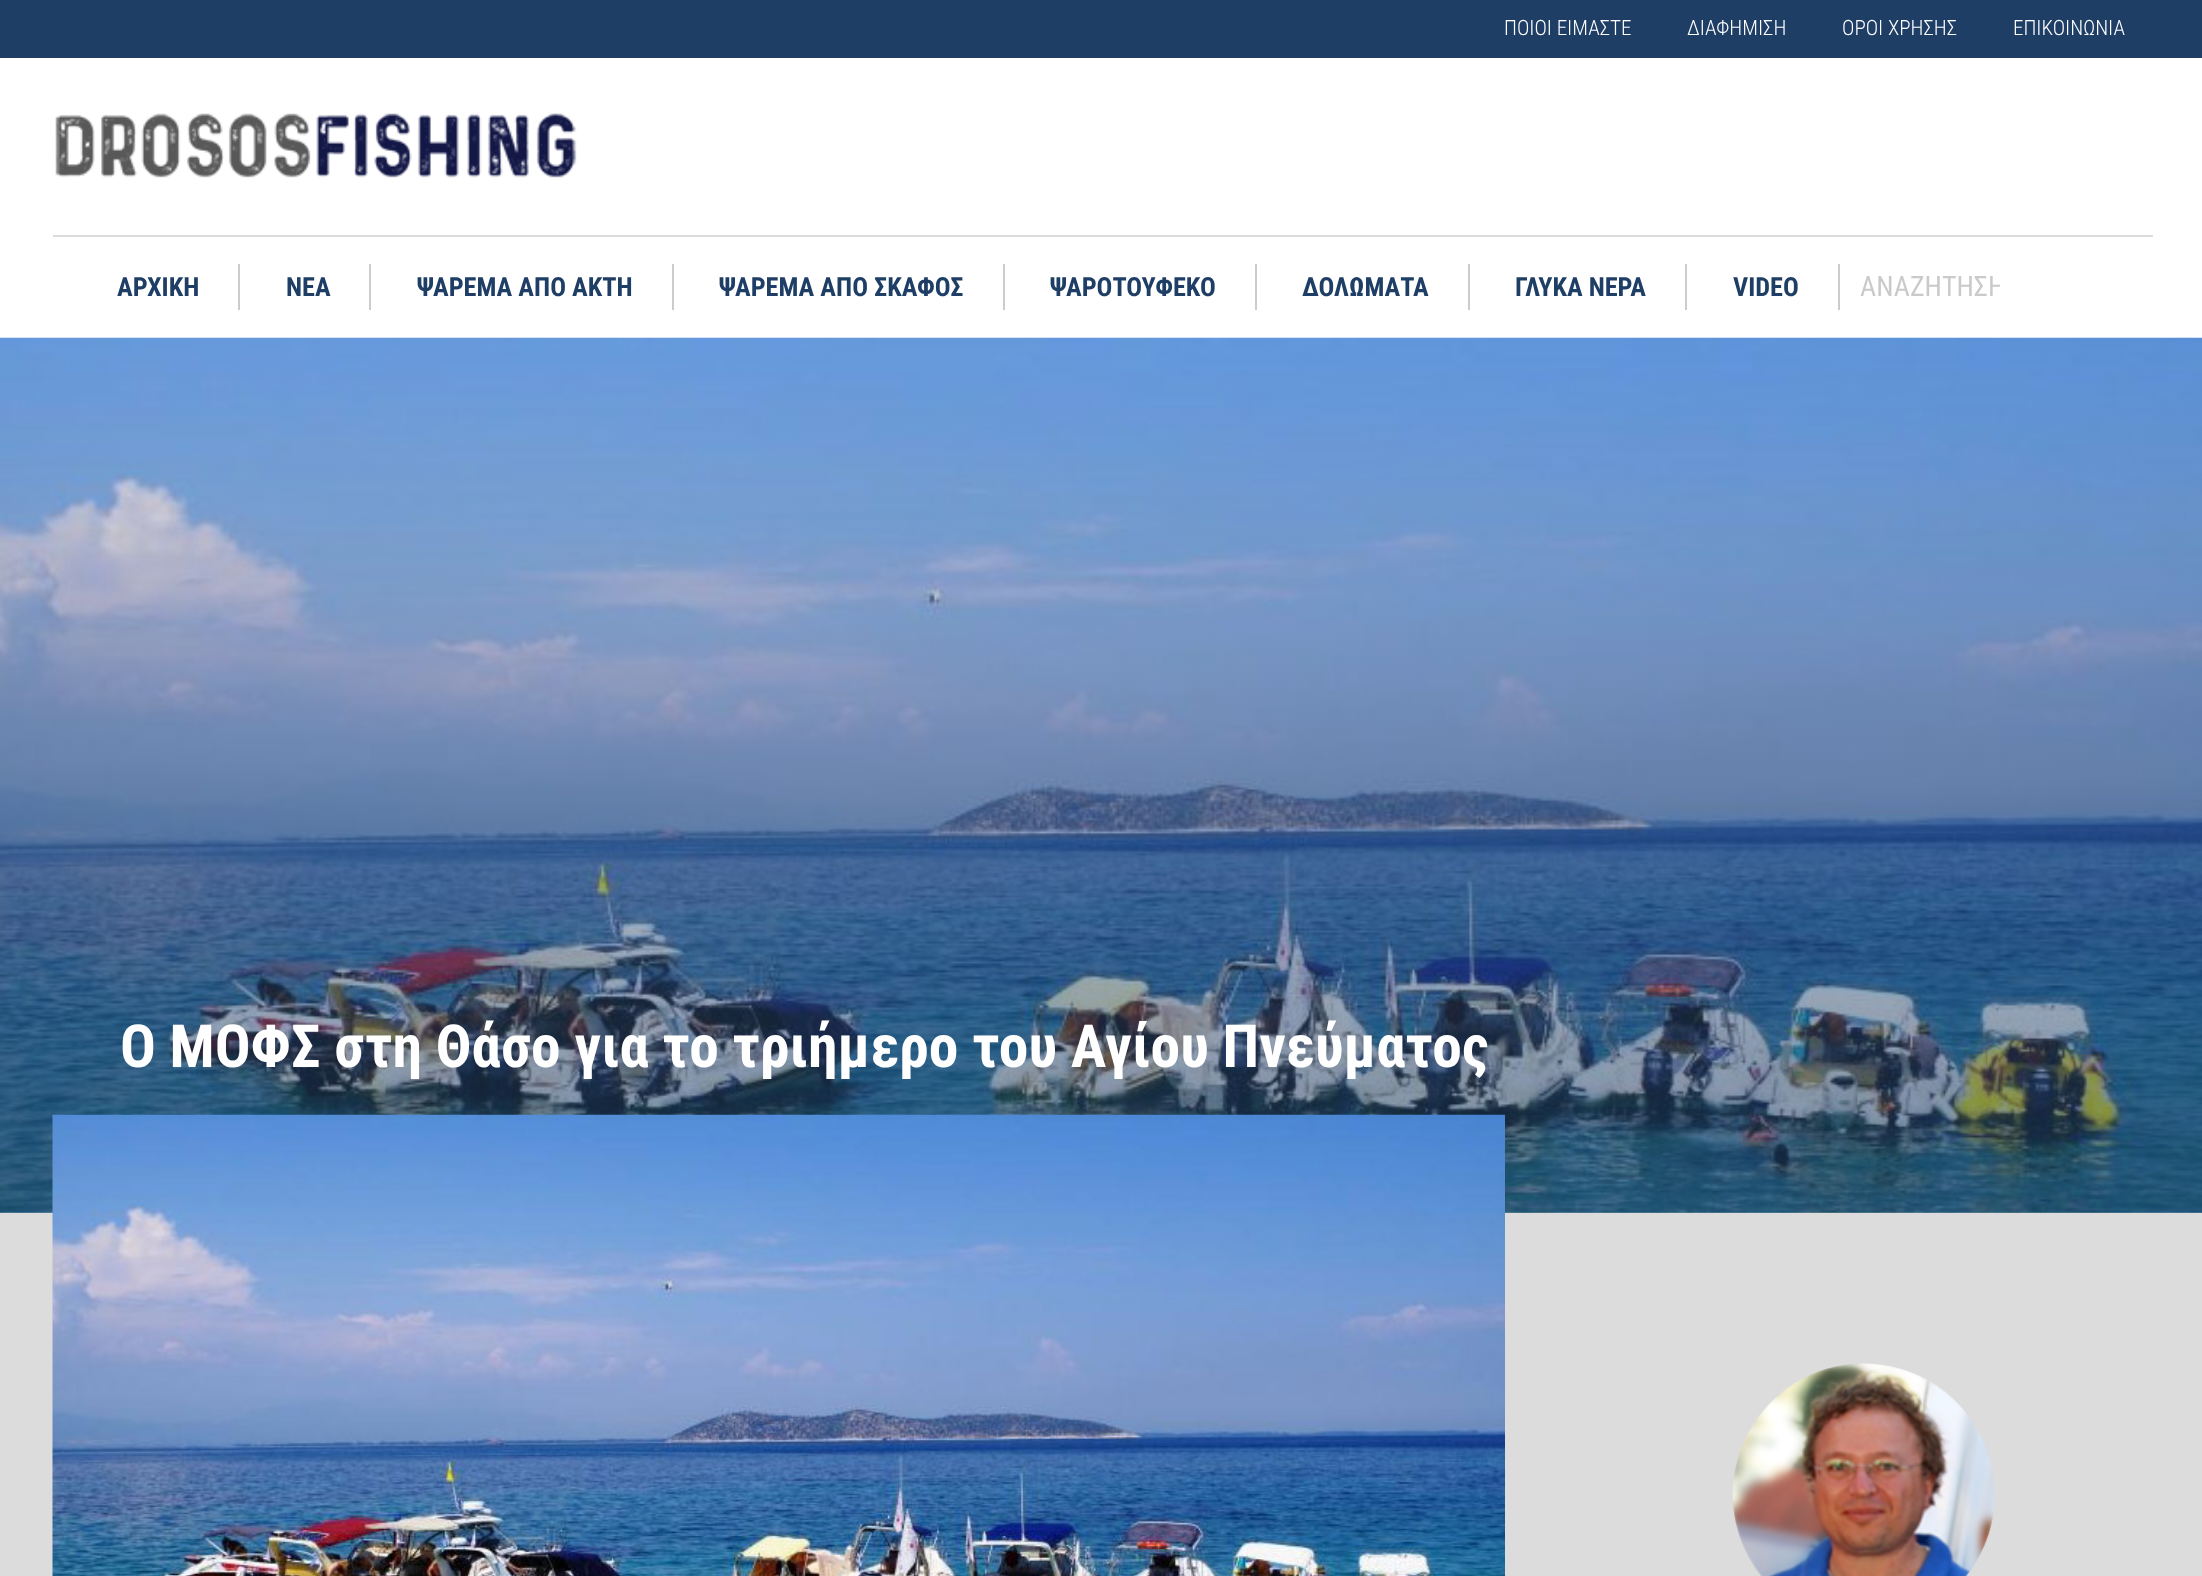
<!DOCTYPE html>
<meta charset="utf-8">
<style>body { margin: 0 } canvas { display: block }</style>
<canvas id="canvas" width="2202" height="1576"></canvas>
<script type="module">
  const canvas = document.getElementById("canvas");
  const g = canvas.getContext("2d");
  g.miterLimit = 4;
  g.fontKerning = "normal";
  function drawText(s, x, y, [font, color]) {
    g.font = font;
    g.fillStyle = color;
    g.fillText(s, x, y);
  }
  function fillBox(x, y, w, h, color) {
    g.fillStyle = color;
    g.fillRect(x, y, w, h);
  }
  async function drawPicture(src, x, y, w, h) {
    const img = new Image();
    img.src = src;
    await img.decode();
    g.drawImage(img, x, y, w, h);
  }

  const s1 = ["300 21px Roboto Condensed", "#FFFFFF"];
  const s2 = ["bold 26.25px Roboto Condensed", "#1E3E66"];
  const s3 = ["28px Roboto Condensed", "#CACACA"];
  const s4 = ["bold 59.5px Roboto Condensed", "#FFFFFF"];

  fillBox(0, 0, 2202, 1576, "#FFFFFF");
  fillBox(0, 0, 2202, 58, "#1E3E66");
  drawText("ΠΟΙΟΙ ΕΙΜΑΣΤΕ", 1504, 35, s1);
  drawText("ΔΙΑΦΗΜΙΣΗ", 1687, 35, s1);
  drawText("ΟΡΟΙ ΧΡΗΣΗΣ", 1842, 35, s1);
  drawText("ΕΠΙΚΟΙΝΩΝΙΑ", 2013, 35, s1);
  await drawPicture("pic1.png", 55, 113, 522, 65);
  fillBox(53, 235, 2100, 2, "#DCDCDC");
  fillBox(238, 264, 2, 46, "#CCCCCC");
  drawText("ΑΡΧΙΚΗ", 117, 296, s2);
  fillBox(369, 264, 2, 46, "#CCCCCC");
  drawText("ΝΕΑ", 286, 296, s2);
  fillBox(672, 264, 2, 46, "#CCCCCC");
  drawText("ΨΑΡΕΜΑ ΑΠΟ ΑΚΤΗ", 417, 296, s2);
  fillBox(1003, 264, 2, 46, "#CCCCCC");
  drawText("ΨΑΡΕΜΑ ΑΠΟ ΣΚΑΦΟΣ", 719, 296, s2);
  fillBox(1255, 264, 2, 46, "#CCCCCC");
  drawText("ΨΑΡΟΤΟΥΦΕΚΟ", 1050, 296, s2);
  fillBox(1468, 264, 2, 46, "#CCCCCC");
  drawText("ΔΟΛΩΜΑΤΑ", 1302, 296, s2);
  fillBox(1685, 264, 2, 46, "#CCCCCC");
  drawText("ΓΛΥΚΑ ΝΕΡΑ", 1515, 296, s2);
  fillBox(1838, 264, 2, 46, "#CCCCCC");
  drawText("VIDEO", 1733, 296, s2);
  g.save();
  g.beginPath();
  g.rect(1860, 270, 140, 33);
  g.clip();
  drawText("ΑΝΑΖΗΤΗΣΗ", 1860, 296, s3);
  g.restore();
  await drawPicture("pic2.png", 0, 337, 2202, 876);
  drawText("Ο ΜΟΦΣ στη Θάσο για το τριήμερο του Αγίου Πνεύματος", 120, 1067, s4);
  fillBox(0, 1213, 2202, 363, "#DCDCDC");
  await drawPicture("pic3.png", 52, 1114, 1453, 462);
  await drawPicture("pic4.png", 1732, 1363, 263, 213);
</script>
